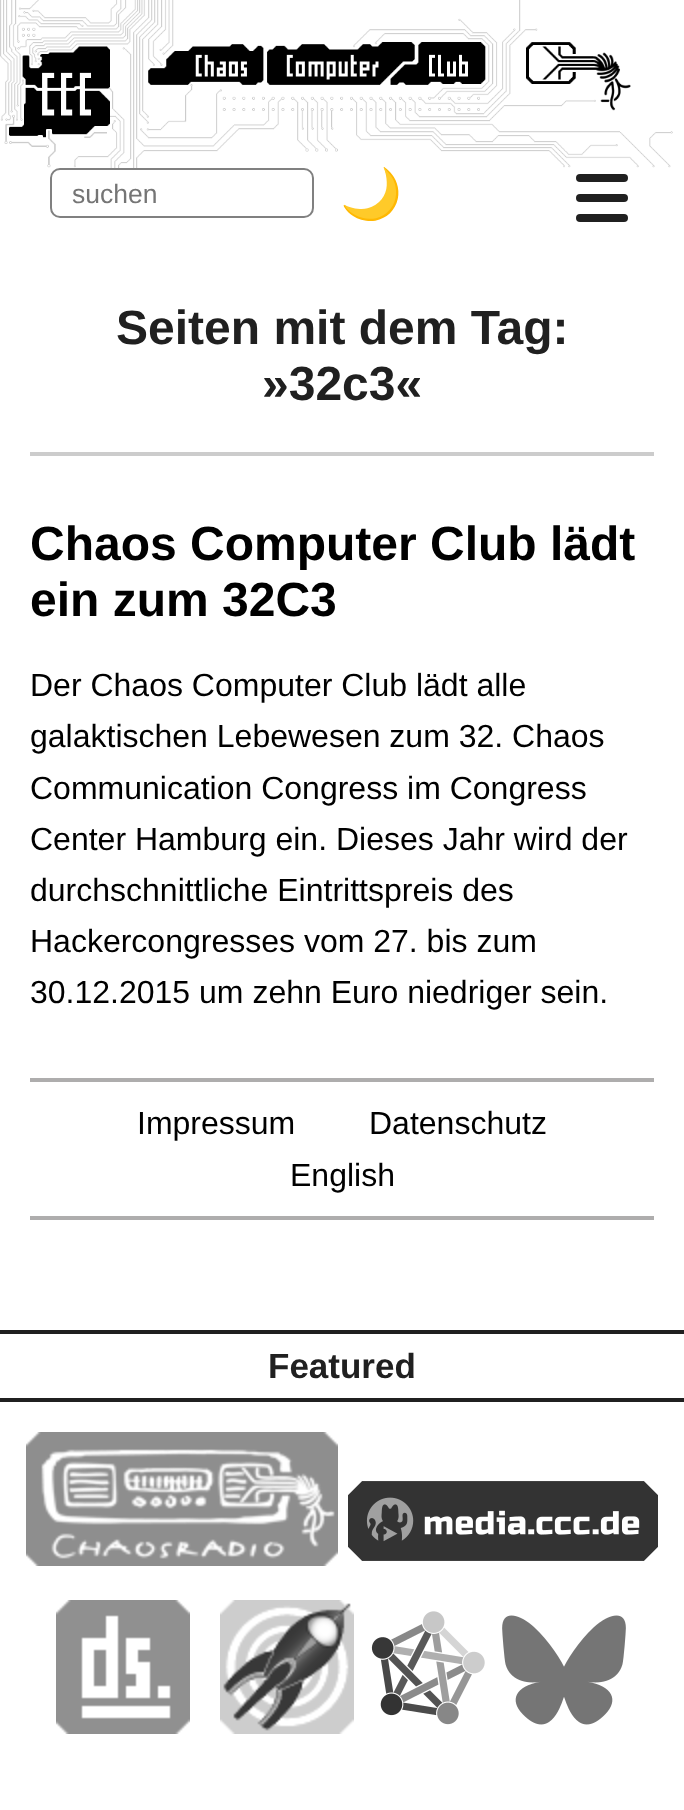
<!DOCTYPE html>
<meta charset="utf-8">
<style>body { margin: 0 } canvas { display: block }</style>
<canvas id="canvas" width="684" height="1810"></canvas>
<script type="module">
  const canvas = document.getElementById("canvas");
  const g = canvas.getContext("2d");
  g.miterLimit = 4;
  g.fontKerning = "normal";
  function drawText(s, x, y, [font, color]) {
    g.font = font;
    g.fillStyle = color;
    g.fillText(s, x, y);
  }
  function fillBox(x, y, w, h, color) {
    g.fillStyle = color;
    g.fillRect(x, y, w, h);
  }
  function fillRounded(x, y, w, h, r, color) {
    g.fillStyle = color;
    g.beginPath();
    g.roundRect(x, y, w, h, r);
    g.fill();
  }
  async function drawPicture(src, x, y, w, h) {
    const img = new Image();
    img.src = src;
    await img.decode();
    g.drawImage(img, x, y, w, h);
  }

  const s1 = ["26.5px Liberation Sans", "#757575"];
  const s2 = ["50px Noto Color Emoji", "#757575"];
  const s3 = ["bold 48px Liberation Sans", "#202020"];
  const s4 = ["bold 48px Liberation Sans", "#000000"];
  const s5 = ["32px Liberation Sans", "#000000"];
  const s6 = ["bold 35px Liberation Sans", "#202020"];

  fillBox(0, 0, 684, 1810, "#FFFFFF");
  await drawPicture("pic1.png", 0, 0, 673, 168);
  g.beginPath();
  g.roundRect(51, 169, 262, 48, 9);
  g.strokeStyle = "#808080";
  g.lineWidth = 2;
  g.stroke();
  drawText("suchen", 72, 203, s1);
  drawText("🌙", 340, 211, s2);
  fillRounded(576, 174, 52, 8, 4, "#202020");
  fillRounded(576, 194, 52, 8, 4, "#202020");
  fillRounded(576, 214, 52, 8, 4, "#202020");
  drawText("Seiten mit dem Tag:", 116, 344, s3);
  drawText("»32c3«", 262, 400, s3);
  fillBox(30, 452, 624, 4, "#CCCCCC");
  drawText("Chaos Computer Club lädt", 30, 560, s4);
  drawText("ein zum 32C3", 30, 616, s4);
  drawText("Der Chaos Computer Club lädt alle", 30, 696, s5);
  drawText("galaktischen Lebewesen zum 32. Chaos", 30, 747, s5);
  drawText("Communication Congress im Congress", 30, 799, s5);
  drawText("Center Hamburg ein. Dieses Jahr wird der", 30, 850, s5);
  drawText("durchschnittliche Eintrittspreis des", 30, 901, s5);
  drawText("Hackercongresses vom 27. bis zum", 30, 952, s5);
  drawText("30.12.2015 um zehn Euro niedriger sein.", 30, 1003, s5);
  fillBox(30, 1078, 624, 4, "#AEADAD");
  fillBox(30, 1216, 624, 4, "#AEADAD");
  drawText("Impressum", 137, 1134, s5);
  drawText("Datenschutz", 369, 1134, s5);
  drawText("English", 290, 1186, s5);
  fillBox(0, 1330, 684, 4, "#202020");
  fillBox(0, 1398, 684, 4, "#202020");
  drawText("Featured", 268, 1378, s6);
  await drawPicture("pic2.png", 26, 1432, 312, 134);
  await drawPicture("pic3.png", 348, 1481, 310, 80);
  await drawPicture("pic4.png", 56, 1600, 134, 134);
  await drawPicture("pic5.png", 220, 1600, 134, 134);
  await drawPicture("pic6.png", 371, 1611, 114, 114);
  await drawPicture("pic7.png", 502, 1615, 124, 110);
</script>
